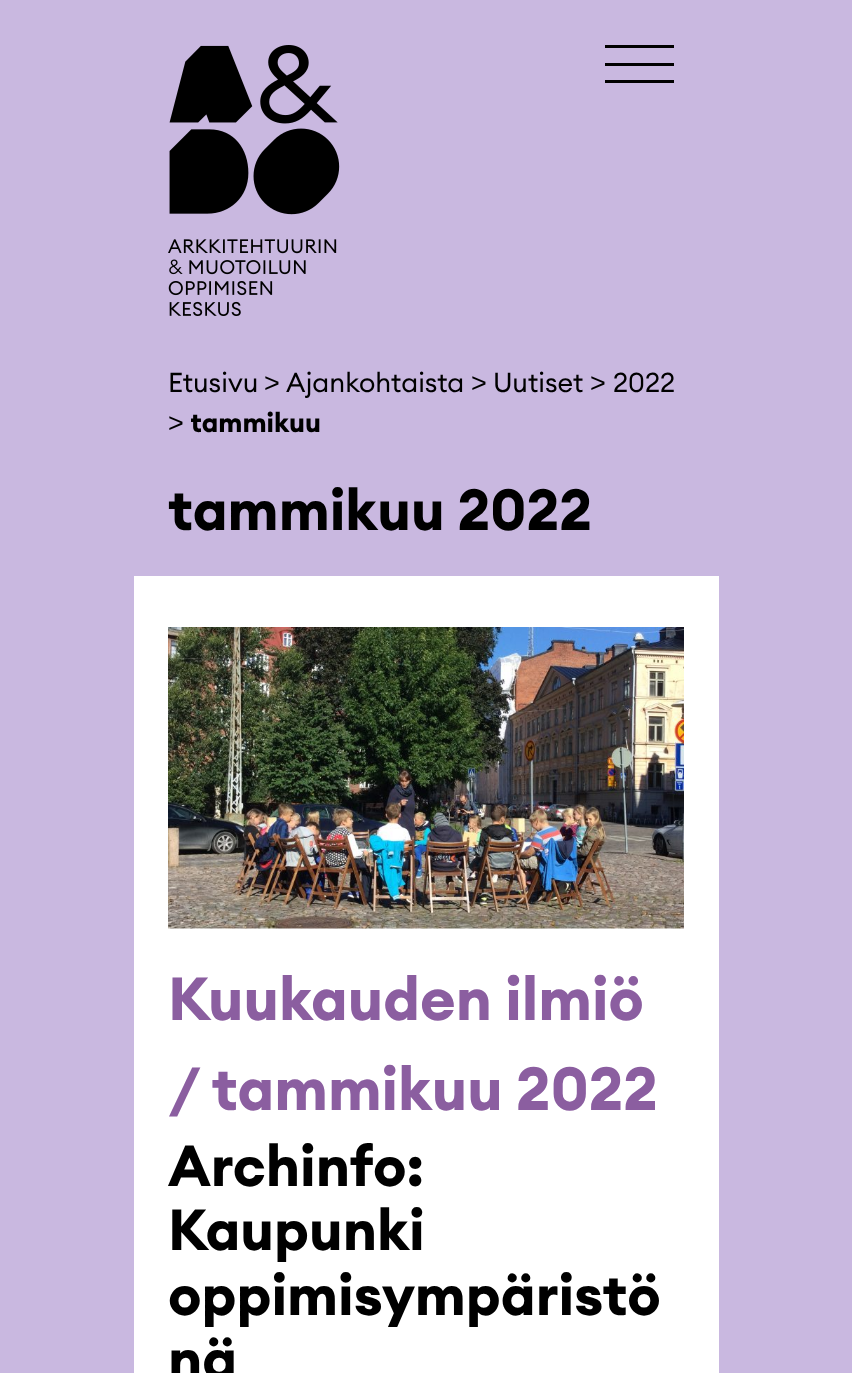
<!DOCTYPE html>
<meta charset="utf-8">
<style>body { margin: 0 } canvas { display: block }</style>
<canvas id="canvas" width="852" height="1373"></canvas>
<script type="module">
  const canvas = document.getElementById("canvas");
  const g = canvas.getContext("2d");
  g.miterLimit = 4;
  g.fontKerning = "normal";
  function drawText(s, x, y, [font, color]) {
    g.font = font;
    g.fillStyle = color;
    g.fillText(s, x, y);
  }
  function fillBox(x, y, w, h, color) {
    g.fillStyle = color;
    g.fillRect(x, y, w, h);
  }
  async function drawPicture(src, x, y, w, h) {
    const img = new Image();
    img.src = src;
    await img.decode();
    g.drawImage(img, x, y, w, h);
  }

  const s1 = ["27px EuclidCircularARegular", "#000000"];
  const s2 = ["27px Liberation Sans", "#000000"];
  const s3 = ["bold 27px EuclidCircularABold", "#000000"];
  const s4 = ["bold 57px EuclidCircularABold", "#000000"];
  const s5 = ["bold 60px EuclidCircularABold", "#8B5EA0"];

  fillBox(0, 0, 852, 1373, "#C9B8E0");
  await drawPicture("pic1.png", 168, 45, 172, 271);
  fillBox(605, 45, 69, 3, "#000000");
  fillBox(605, 80, 69, 3, "#000000");
  fillBox(605, 63, 69, 3, "#000000");
  drawText("Etusivu", 168, 392, s1);
  drawText(">", 264, 392, s2);
  drawText("Ajankohtaista", 286, 392, s1);
  drawText(">", 471, 392, s2);
  drawText("Uutiset", 493, 392, s1);
  drawText(">", 590, 392, s2);
  drawText("2022", 613, 392, s1);
  drawText(">", 168, 432, s2);
  g.save();
  g.beginPath();
  g.rect(191, 402, 130, 41);
  g.clip();
  drawText("tammikuu", 190, 432, s3);
  g.restore();
  drawText("tammikuu 2022", 168, 530, s4);
  fillBox(134, 576, 585, 797, "#FFFFFF");
  await drawPicture("pic2.png", 168, 627, 516, 302);
  drawText("Kuukauden ilmiö", 168, 1020, s5);
  drawText("/ tammikuu 2022", 168, 1110, s5);
  drawText("Archinfo:", 168, 1186, s4);
  drawText("Kaupunki", 168, 1250, s4);
  drawText("oppimisympäristö", 168, 1315, s4);
  drawText("nä", 168, 1379, s4);
</script>
